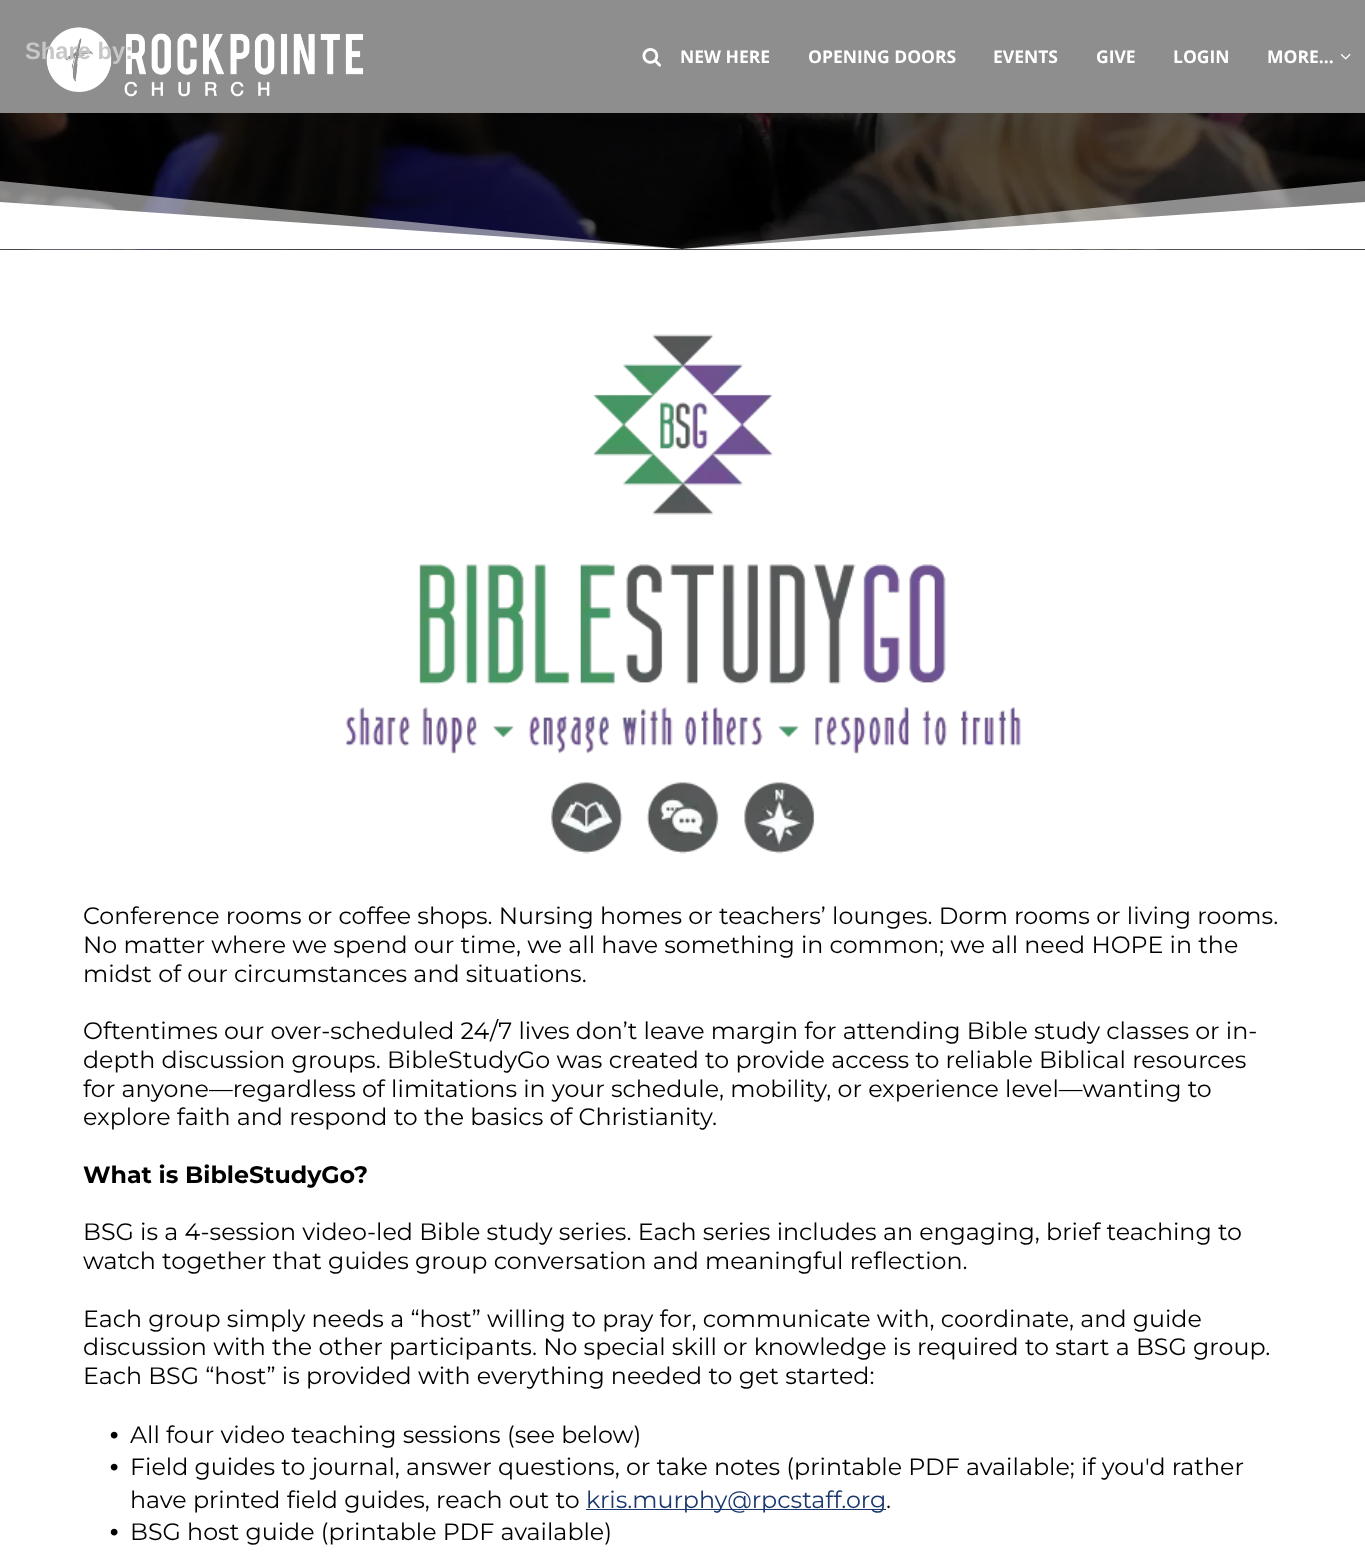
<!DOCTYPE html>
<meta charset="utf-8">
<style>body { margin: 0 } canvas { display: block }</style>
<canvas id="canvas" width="1365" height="1568"></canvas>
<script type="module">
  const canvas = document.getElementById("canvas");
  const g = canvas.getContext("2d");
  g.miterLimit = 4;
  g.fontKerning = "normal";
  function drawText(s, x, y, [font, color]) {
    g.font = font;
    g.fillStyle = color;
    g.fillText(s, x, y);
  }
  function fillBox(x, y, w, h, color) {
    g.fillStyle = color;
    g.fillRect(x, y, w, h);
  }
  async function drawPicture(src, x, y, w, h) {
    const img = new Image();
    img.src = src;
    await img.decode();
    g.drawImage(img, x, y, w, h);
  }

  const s1 = ["bold 23.75px Liberation Sans", "#C7C7C7"];
  const s2 = ["bold 17.5px Open Sans", "#FFFFFF"];
  const s3 = ["23.75px Montserrat", "#000000"];
  const s4 = ["bold 23.75px Montserrat", "#000000"];
  const s5 = ["bold 23.75px Liberation Sans", "#000000"];
  const s6 = ["23.75px Montserrat", "#1A386D"];

  fillBox(0, 0, 1365, 1568, "#FFFFFF");
  fillBox(0, 0, 1365, 113, "#8E8E8E");
  await drawPicture("pic1.png", 46, 27, 318, 70);
  drawText("Share by:", 25, 59, s1);
  await drawPicture("pic2.png", 642, 48, 19, 19);
  drawText("NEW HERE", 680, 63, s2);
  drawText("OPENING DOORS", 808, 63, s2);
  drawText("EVENTS", 993, 63, s2);
  drawText("GIVE", 1096, 63, s2);
  drawText("LOGIN", 1173, 63, s2);
  drawText("MORE...", 1267, 63, s2);
  await drawPicture("pic3.png", 1340, 54, 11, 6);
  await drawPicture("pic4.png", 0, 113, 1365, 137);
  g.fillStyle = "rgba(255, 255, 255, 0.5)";
  g.beginPath();
  g.moveTo(682, 249);
  g.lineTo(0, 181);
  g.lineTo(0, 249);
  g.lineTo(1365, 249);
  g.lineTo(1365, 181);
  g.closePath();
  g.fill();
  g.fillStyle = "#FFFFFF";
  g.beginPath();
  g.moveTo(682, 249);
  g.lineTo(0, 202);
  g.lineTo(0, 249);
  g.lineTo(1365, 249);
  g.lineTo(1365, 202);
  g.closePath();
  g.fill();
  await drawPicture("pic5.png", 346, 334, 675, 520);
  drawText("Conference rooms or coffee shops. Nursing homes or teachers’ lounges. Dorm rooms or living rooms.", 83, 924, s3);
  drawText("No matter where we spend our time, we all have something in common; we all need HOPE in the", 83, 953, s3);
  drawText("midst of our circumstances and situations.", 83, 982, s3);
  drawText("Oftentimes our over-scheduled 24/7 lives don’t leave margin for attending Bible study classes or in-", 83, 1039, s3);
  drawText("depth discussion groups. BibleStudyGo was created to provide access to reliable Biblical resources", 83, 1068, s3);
  drawText("for anyone—regardless of limitations in your schedule, mobility, or experience level—wanting to", 83, 1097, s3);
  drawText("explore faith and respond to the basics of Christianity.", 83, 1125, s3);
  drawText("What is BibleStudyGo?", 83, 1183, s4);
  drawText("BSG is a 4-session video-led Bible study series. Each series includes an engaging, brief teaching to", 83, 1240, s3);
  drawText("watch together that guides group conversation and meaningful reflection.", 83, 1269, s3);
  drawText("Each group simply needs a “host” willing to pray for, communicate with, coordinate, and guide", 83, 1327, s3);
  drawText("discussion with the other participants. No special skill or knowledge is required to start a BSG group.", 83, 1355, s3);
  drawText("Each BSG “host” is provided with everything needed to get started:", 83, 1384, s3);
  drawText("•", 110, 1443, s5);
  drawText("All four video teaching sessions (see below)", 130, 1443, s3);
  drawText("•", 110, 1475, s5);
  drawText("Field guides to journal, answer questions, or take notes (printable PDF available; if you'd rather", 130, 1475, s3);
  drawText("have printed field guides, reach out to", 130, 1508, s3);
  fillBox(586, 1509, 300, 1, "#1A386D");
  drawText("kris.murphy@rpcstaff.org", 586, 1508, s6);
  drawText(".", 886, 1508, s3);
  drawText("•", 110, 1540, s5);
  drawText("BSG host guide (printable PDF available)", 130, 1540, s3);
</script>
